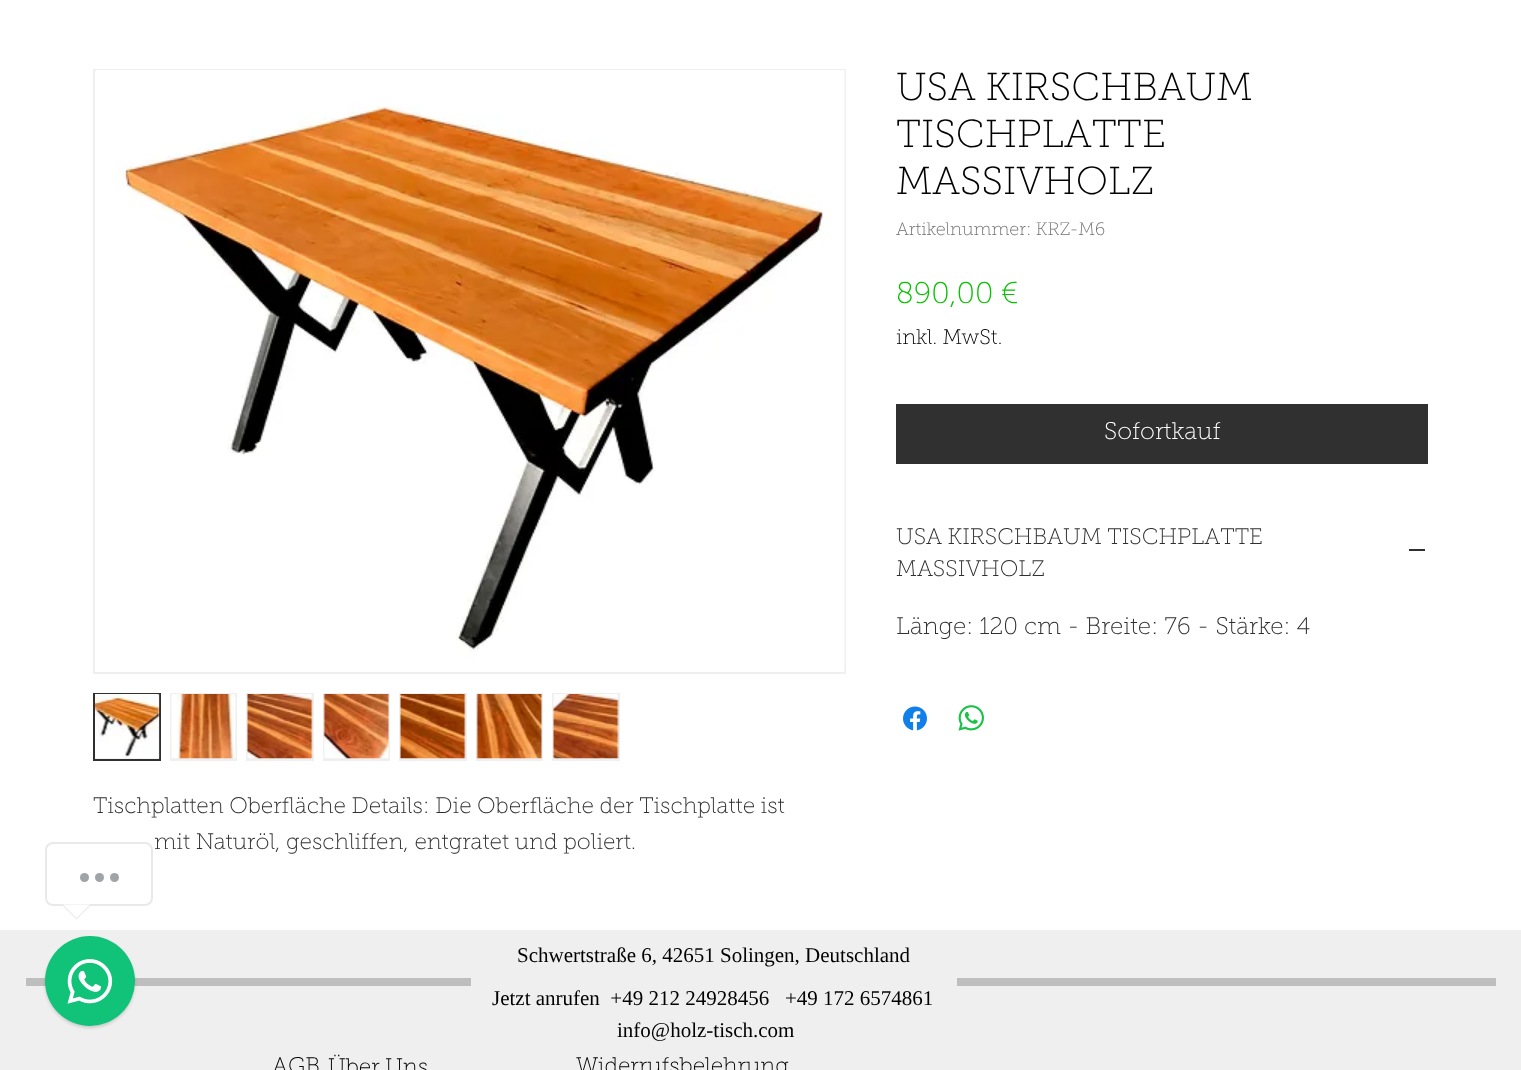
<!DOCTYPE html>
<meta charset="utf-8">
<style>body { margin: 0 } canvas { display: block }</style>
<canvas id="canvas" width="1521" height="1070"></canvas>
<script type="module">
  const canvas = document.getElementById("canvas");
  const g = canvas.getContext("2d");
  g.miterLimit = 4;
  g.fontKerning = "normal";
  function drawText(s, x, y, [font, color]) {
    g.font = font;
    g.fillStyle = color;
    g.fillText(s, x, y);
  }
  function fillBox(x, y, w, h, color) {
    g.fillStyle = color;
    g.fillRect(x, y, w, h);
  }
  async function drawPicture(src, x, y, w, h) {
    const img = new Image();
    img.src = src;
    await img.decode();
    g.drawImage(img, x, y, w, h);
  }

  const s1 = ["100 39px 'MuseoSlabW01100'", "#000000"];
  const s2 = ["100 18px 'MuseoSlabW01100'", "#717070"];
  const s3 = ["100 30px 'MuseoSlabW01100'", "#08C202"];
  const s4 = ["100 21px 'MuseoSlabW01100'", "#000000"];
  const s5 = ["100 24px 'MuseoSlabW01100'", "#FFFFFF"];
  const s6 = ["100 22.5px 'MuseoSlabW01100'", "#303030"];
  const s7 = ["100 24px 'MuseoSlabW01100'", "#303030"];
  const s8 = ["21px Liberation Serif", "#000000"];
  const s9 = ["100 22.5px 'MuseoSlabW01100'", "#000000"];

  fillBox(0, 0, 1521, 1070, "#FFFFFF");
  drawText("USA KIRSCHBAUM", 896, 100, s1);
  drawText("TISCHPLATTE", 896, 147, s1);
  drawText("MASSIVHOLZ", 896, 194, s1);
  drawText("Artikelnummer: KRZ-M6", 896, 235, s2);
  drawText("890,00 €", 896, 303, s3);
  drawText("inkl. MwSt.", 896, 344, s4);
  fillBox(896, 404, 532, 60, "#303030");
  drawText("Sofortkauf", 1104, 439, s5);
  drawText("USA KIRSCHBAUM TISCHPLATTE", 896, 544, s6);
  drawText("MASSIVHOLZ", 896, 576, s6);
  fillBox(1409, 549, 16, 2, "#303030");
  drawText("Länge: 120 cm - Breite: 76 - Stärke: 4", 896, 634, s7);
  await drawPicture("pic1.png", 903, 706, 24, 25);
  await drawPicture("pic2.png", 958, 705, 26, 26);
  g.strokeStyle = "#EFEFEF";
  g.lineWidth = 2;
  g.strokeRect(94, 70, 751, 603);
  await drawPicture("pic3.png", 96, 70, 749, 602);
  g.fillStyle = "#EFEFEF";
  g.beginPath();
  g.rect(94, 694, 66, 66);
  g.fill();
  g.strokeStyle = "#303030";
  g.stroke();
  await drawPicture("pic4.png", 95, 694, 65, 65);
  fillBox(170, 693, 67, 68, "#EFEFEF");
  await drawPicture("pic5.png", 171, 694, 65, 65);
  fillBox(246, 693, 68, 68, "#EFEFEF");
  await drawPicture("pic6.png", 247, 694, 66, 65);
  fillBox(323, 693, 67, 68, "#EFEFEF");
  await drawPicture("pic7.png", 323, 694, 66, 65);
  fillBox(399, 693, 68, 68, "#EFEFEF");
  await drawPicture("pic8.png", 400, 694, 66, 65);
  fillBox(476, 693, 67, 68, "#EFEFEF");
  await drawPicture("pic9.png", 476, 694, 66, 65);
  fillBox(552, 693, 68, 68, "#EFEFEF");
  await drawPicture("pic10.png", 553, 694, 66, 65);
  drawText("Tischplatten Oberfläche Details: Die Oberfläche der Tischplatte ist", 93, 813, s6);
  drawText("mit Naturöl, geschliffen, entgratet und poliert.", 154, 849, s6);
  fillBox(0, 930, 1521, 140, "#EFEFEF");
  drawText("Schwertstraße 6, 42651 Solingen, Deutschland", 517, 962, s8);
  fillBox(26, 978, 445, 8, "#BFBEBE");
  fillBox(957, 978, 539, 8, "#BFBEBE");
  drawText("Jetzt anrufen  +49 212 24928456   +49 172 6574861", 492, 1005, s8);
  drawText("info@holz-tisch.com", 617, 1037, s8);
  drawText("AGB", 272, 1073, s9);
  drawText("Über Uns", 328, 1074, s9);
  drawText("Widerrufsbelehrung", 576, 1073, s9);
  g.beginPath();
  g.roundRect(46, 843, 106, 62, 7);
  g.strokeStyle = "#E9E9E9";
  g.stroke();
  g.fillStyle = "#9FA4A8";
  g.beginPath();
  g.arc(84.5, 877.5, 4.5, 0, Math.PI * 2);
  g.fill();
  g.beginPath();
  g.arc(99.5, 877.5, 4.5, 0, Math.PI * 2);
  g.fill();
  g.beginPath();
  g.arc(114.5, 877.5, 4.5, 0, Math.PI * 2);
  g.fill();
  g.fillStyle = "#E9E9E9";
  g.beginPath();
  g.moveTo(61.5, 904.5);
  g.lineTo(91.5, 904.5);
  g.lineTo(76.5, 919.5);
  g.closePath();
  g.fill();
  g.fillStyle = "#FFFFFF";
  g.beginPath();
  g.moveTo(63, 904.5);
  g.lineTo(90, 904.5);
  g.lineTo(76.5, 918);
  g.closePath();
  g.fill();
  g.fillStyle = "rgba(0, 0, 0, 0.15)";
  g.filter = "blur(1.5px)";
  g.beginPath();
  g.roundRect(45, 938, 90, 90, 45);
  g.fill();
  g.filter = "none";
  g.fillStyle = "#10C379";
  g.beginPath();
  g.arc(90, 981, 45, 0, Math.PI * 2);
  g.fill();
  await drawPicture("pic11.png", 67, 959, 46, 45);
</script>
